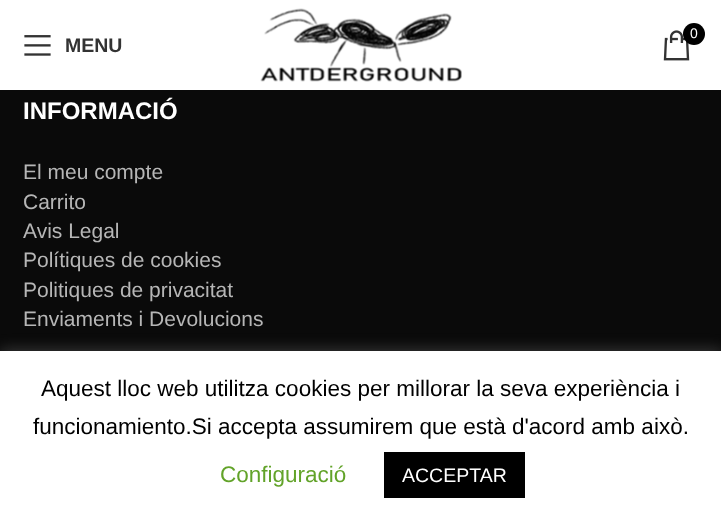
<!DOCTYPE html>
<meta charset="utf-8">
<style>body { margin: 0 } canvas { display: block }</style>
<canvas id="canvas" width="721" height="523"></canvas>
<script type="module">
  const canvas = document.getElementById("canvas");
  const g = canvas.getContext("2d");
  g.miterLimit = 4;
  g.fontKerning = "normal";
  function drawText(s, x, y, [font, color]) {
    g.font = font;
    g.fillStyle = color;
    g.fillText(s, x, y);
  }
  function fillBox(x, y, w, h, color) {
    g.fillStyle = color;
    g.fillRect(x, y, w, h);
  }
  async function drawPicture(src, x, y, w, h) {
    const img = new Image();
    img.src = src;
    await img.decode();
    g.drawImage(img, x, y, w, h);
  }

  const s1 = ["14px Liberation Sans", "#FFFFFF"];
  const s2 = ["bold 19.5px Liberation Sans", "#333333"];
  const s3 = ["bold 24px Liberation Sans", "#FFFFFF"];
  const s4 = ["21px Liberation Sans", "#B6B6B6"];
  const s5 = ["22.5px Liberation Sans", "#000000"];
  const s6 = ["22.5px Liberation Sans", "#62A329"];
  const s7 = ["19.5px Liberation Sans", "#FFFFFF"];

  fillBox(0, 0, 721, 523, "#0A0A0A");
  fillBox(0, 0, 721, 90, "#FFFFFF");
  await drawPicture("pic1.png", 260, 8, 202, 74);
  await drawPicture("pic2.png", 663, 30, 27, 31);
  g.fillStyle = "#000000";
  g.beginPath();
  g.arc(694, 34, 11, 0, Math.PI * 2);
  g.fill();
  drawText("0", 690, 38, s1);
  await drawPicture("pic3.png", 24, 35, 27, 21);
  drawText("MENU", 65, 52, s2);
  drawText("INFORMACIÓ", 23, 119, s3);
  drawText("El meu compte", 23, 179, s4);
  drawText("Carrito", 23, 209, s4);
  drawText("Avis Legal", 23, 238, s4);
  drawText("Polítiques de cookies", 23, 267, s4);
  drawText("Politiques de privacitat", 23, 297, s4);
  drawText("Enviaments i Devolucions", 23, 326, s4);
  g.fillStyle = "rgba(172, 171, 171, 0.3)";
  g.filter = "blur(7.5px)";
  g.beginPath();
  g.rect(0, 350, 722, 172);
  g.fill();
  g.filter = "none";
  fillBox(0, 351, 721, 172, "#FFFFFF");
  drawText("Aquest lloc web utilitza cookies per millorar la seva experiència i", 41, 396, s5);
  drawText("funcionamiento.Si accepta assumirem que està d'acord amb això.", 33, 434, s5);
  drawText("Configuració", 220, 482, s6);
  fillBox(384, 452, 141, 46, "#000000");
  drawText("ACCEPTAR", 402, 482, s7);
</script>
